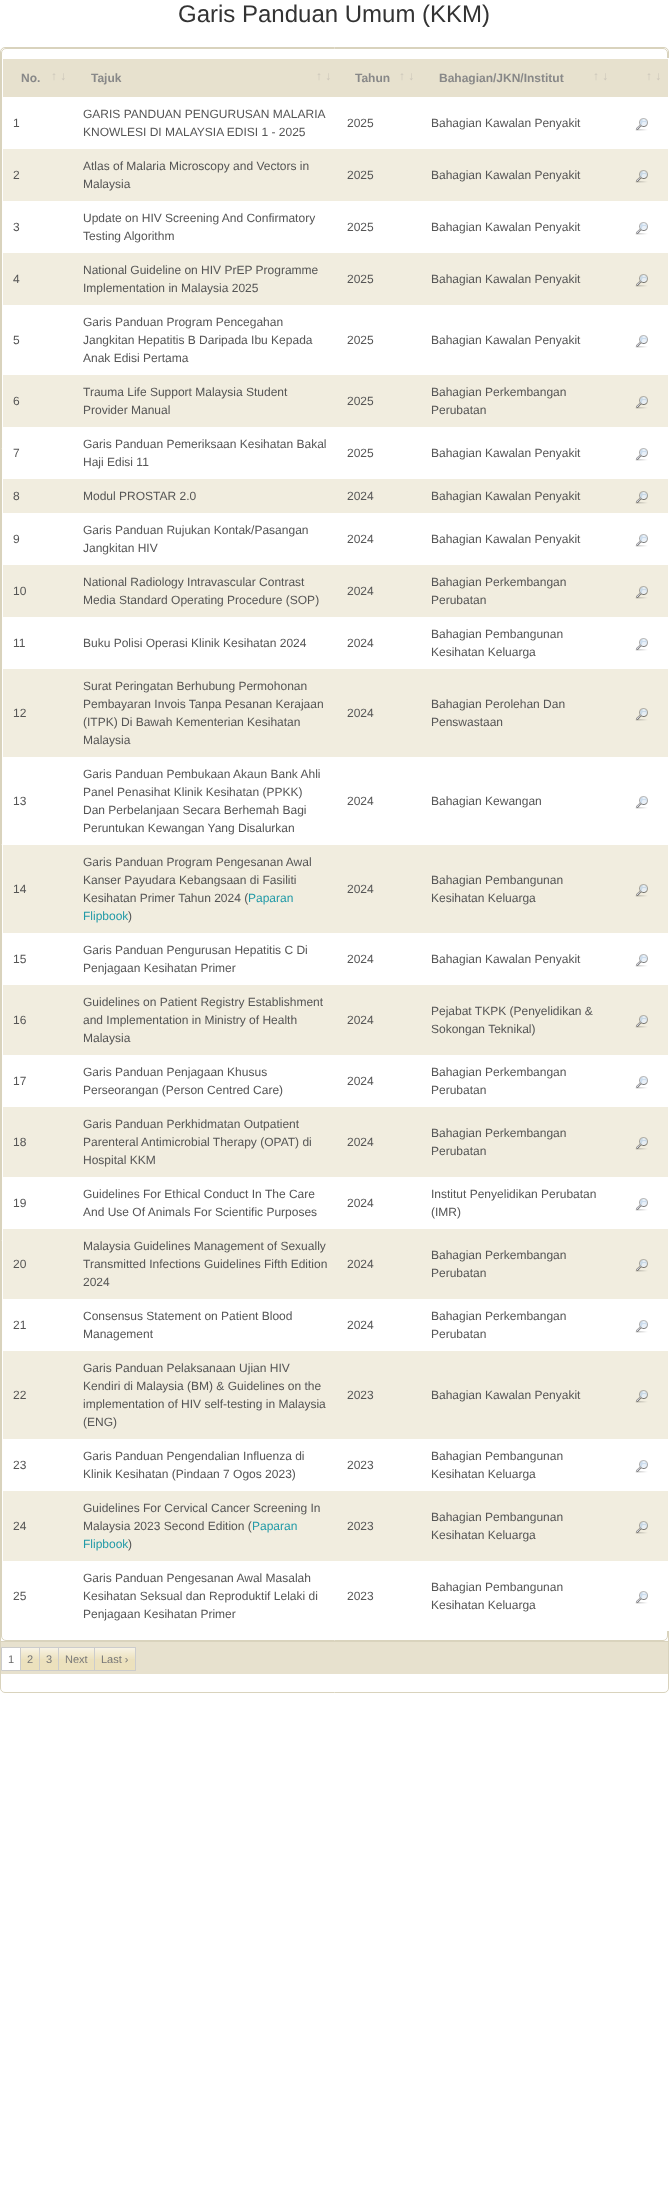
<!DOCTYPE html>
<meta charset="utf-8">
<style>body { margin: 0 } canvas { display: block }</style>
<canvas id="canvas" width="669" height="2189"></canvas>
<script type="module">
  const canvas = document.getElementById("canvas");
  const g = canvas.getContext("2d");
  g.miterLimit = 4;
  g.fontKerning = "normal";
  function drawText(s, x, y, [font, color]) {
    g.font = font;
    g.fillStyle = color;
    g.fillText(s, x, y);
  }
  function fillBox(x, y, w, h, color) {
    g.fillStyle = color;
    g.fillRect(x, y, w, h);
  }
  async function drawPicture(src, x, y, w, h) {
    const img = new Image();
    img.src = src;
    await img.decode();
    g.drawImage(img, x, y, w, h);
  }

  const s1 = ["24px Liberation Sans", "#333333"];
  const s2 = ["bold 12px Liberation Sans", "#888888"];
  const s3 = ["bold 12px Liberation Sans", "#CBC6B9"];
  const s4 = ["12px Liberation Sans", "#555555"];
  const s5 = ["12px Liberation Sans", "#229AA7"];
  const s6 = ["11px Liberation Sans", "#666666"];
  const s7 = ["11px Liberation Sans", "#777777"];

  fillBox(0, 0, 669, 2189, "#FFFFFF");
  drawText("Garis Panduan Umum (KKM)", 178, 22, s1);
  g.beginPath();
  g.roundRect(0.5, 47.5, 668, 1645, 4.5);
  g.strokeStyle = "#D9D3BD";
  g.stroke();
  g.beginPath();
  g.roundRect(1.5, 48.5, 666, 1592, 4.5);
  g.stroke();
  fillBox(667, 58, 2, 1573, "#FFFFFF");
  fillBox(3, 59, 665, 38, "#E7E1CE");
  drawText("No.", 21, 82, s2);
  drawText("↑ ↓", 51, 80, s3);
  drawText("Tajuk", 91, 82, s2);
  drawText("↑ ↓", 316, 80, s3);
  drawText("Tahun", 355, 82, s2);
  drawText("↑ ↓", 399, 80, s3);
  drawText("Bahagian/JKN/Institut", 439, 82, s2);
  drawText("↑ ↓", 593, 80, s3);
  drawText("↑ ↓", 646, 80, s3);
  drawText("1", 13, 127, s4);
  drawText("GARIS PANDUAN PENGURUSAN MALARIA", 83, 118, s4);
  drawText("KNOWLESI DI MALAYSIA EDISI 1 - 2025", 83, 136, s4);
  drawText("2025", 347, 127, s4);
  drawText("Bahagian Kawalan Penyakit", 431, 127, s4);
  await drawPicture("pic1.png", 635, 118, 13, 13);
  fillBox(3, 149, 665, 52, "#F1EDDF");
  drawText("2", 13, 179, s4);
  drawText("Atlas of Malaria Microscopy and Vectors in", 83, 170, s4);
  drawText("Malaysia", 83, 188, s4);
  drawText("2025", 347, 179, s4);
  drawText("Bahagian Kawalan Penyakit", 431, 179, s4);
  await drawPicture("pic2.png", 635, 170, 13, 13);
  drawText("3", 13, 231, s4);
  drawText("Update on HIV Screening And Confirmatory", 83, 222, s4);
  drawText("Testing Algorithm", 83, 240, s4);
  drawText("2025", 347, 231, s4);
  drawText("Bahagian Kawalan Penyakit", 431, 231, s4);
  await drawPicture("pic1.png", 635, 222, 13, 13);
  fillBox(3, 253, 665, 52, "#F1EDDF");
  drawText("4", 13, 283, s4);
  drawText("National Guideline on HIV PrEP Programme", 83, 274, s4);
  drawText("Implementation in Malaysia 2025", 83, 292, s4);
  drawText("2025", 347, 283, s4);
  drawText("Bahagian Kawalan Penyakit", 431, 283, s4);
  await drawPicture("pic2.png", 635, 274, 13, 13);
  drawText("5", 13, 344, s4);
  drawText("Garis Panduan Program Pencegahan", 83, 326, s4);
  drawText("Jangkitan Hepatitis B Daripada Ibu Kepada", 83, 344, s4);
  drawText("Anak Edisi Pertama", 83, 362, s4);
  drawText("2025", 347, 344, s4);
  drawText("Bahagian Kawalan Penyakit", 431, 344, s4);
  await drawPicture("pic1.png", 635, 335, 13, 13);
  fillBox(3, 375, 665, 52, "#F1EDDF");
  drawText("6", 13, 405, s4);
  drawText("Trauma Life Support Malaysia Student", 83, 396, s4);
  drawText("Provider Manual", 83, 414, s4);
  drawText("2025", 347, 405, s4);
  drawText("Bahagian Perkembangan", 431, 396, s4);
  drawText("Perubatan", 431, 414, s4);
  await drawPicture("pic2.png", 635, 396, 13, 13);
  drawText("7", 13, 457, s4);
  drawText("Garis Panduan Pemeriksaan Kesihatan Bakal", 83, 448, s4);
  drawText("Haji Edisi 11", 83, 466, s4);
  drawText("2025", 347, 457, s4);
  drawText("Bahagian Kawalan Penyakit", 431, 457, s4);
  await drawPicture("pic1.png", 635, 448, 13, 13);
  fillBox(3, 479, 665, 34, "#F1EDDF");
  drawText("8", 13, 500, s4);
  drawText("Modul PROSTAR 2.0", 83, 500, s4);
  drawText("2024", 347, 500, s4);
  drawText("Bahagian Kawalan Penyakit", 431, 500, s4);
  await drawPicture("pic2.png", 635, 491, 13, 13);
  drawText("9", 13, 543, s4);
  drawText("Garis Panduan Rujukan Kontak/Pasangan", 83, 534, s4);
  drawText("Jangkitan HIV", 83, 552, s4);
  drawText("2024", 347, 543, s4);
  drawText("Bahagian Kawalan Penyakit", 431, 543, s4);
  await drawPicture("pic1.png", 635, 534, 13, 13);
  fillBox(3, 565, 665, 52, "#F1EDDF");
  drawText("10", 13, 595, s4);
  drawText("National Radiology Intravascular Contrast", 83, 586, s4);
  drawText("Media Standard Operating Procedure (SOP)", 83, 604, s4);
  drawText("2024", 347, 595, s4);
  drawText("Bahagian Perkembangan", 431, 586, s4);
  drawText("Perubatan", 431, 604, s4);
  await drawPicture("pic2.png", 635, 586, 13, 13);
  drawText("11", 13, 647, s4);
  drawText("Buku Polisi Operasi Klinik Kesihatan 2024", 83, 647, s4);
  drawText("2024", 347, 647, s4);
  drawText("Bahagian Pembangunan", 431, 638, s4);
  drawText("Kesihatan Keluarga", 431, 656, s4);
  await drawPicture("pic1.png", 635, 638, 13, 13);
  fillBox(3, 669, 665, 88, "#F1EDDF");
  drawText("12", 13, 717, s4);
  drawText("Surat Peringatan Berhubung Permohonan", 83, 690, s4);
  drawText("Pembayaran Invois Tanpa Pesanan Kerajaan", 83, 708, s4);
  drawText("(ITPK) Di Bawah Kementerian Kesihatan", 83, 726, s4);
  drawText("Malaysia", 83, 744, s4);
  drawText("2024", 347, 717, s4);
  drawText("Bahagian Perolehan Dan", 431, 708, s4);
  drawText("Penswastaan", 431, 726, s4);
  await drawPicture("pic2.png", 635, 708, 13, 13);
  drawText("13", 13, 805, s4);
  drawText("Garis Panduan Pembukaan Akaun Bank Ahli", 83, 778, s4);
  drawText("Panel Penasihat Klinik Kesihatan (PPKK)", 83, 796, s4);
  drawText("Dan Perbelanjaan Secara Berhemah Bagi", 83, 814, s4);
  drawText("Peruntukan Kewangan Yang Disalurkan", 83, 832, s4);
  drawText("2024", 347, 805, s4);
  drawText("Bahagian Kewangan", 431, 805, s4);
  await drawPicture("pic1.png", 635, 796, 13, 13);
  fillBox(3, 845, 665, 88, "#F1EDDF");
  drawText("14", 13, 893, s4);
  drawText("Garis Panduan Program Pengesanan Awal", 83, 866, s4);
  drawText("Kanser Payudara Kebangsaan di Fasiliti", 83, 884, s4);
  drawText("Kesihatan Primer Tahun 2024 (", 83, 902, s4);
  drawText("Paparan", 248, 902, s5);
  drawText("Flipbook", 83, 920, s5);
  drawText(")", 128, 920, s4);
  drawText("2024", 347, 893, s4);
  drawText("Bahagian Pembangunan", 431, 884, s4);
  drawText("Kesihatan Keluarga", 431, 902, s4);
  await drawPicture("pic2.png", 635, 884, 13, 13);
  drawText("15", 13, 963, s4);
  drawText("Garis Panduan Pengurusan Hepatitis C Di", 83, 954, s4);
  drawText("Penjagaan Kesihatan Primer", 83, 972, s4);
  drawText("2024", 347, 963, s4);
  drawText("Bahagian Kawalan Penyakit", 431, 963, s4);
  await drawPicture("pic1.png", 635, 954, 13, 13);
  fillBox(3, 985, 665, 70, "#F1EDDF");
  drawText("16", 13, 1024, s4);
  drawText("Guidelines on Patient Registry Establishment", 83, 1006, s4);
  drawText("and Implementation in Ministry of Health", 83, 1024, s4);
  drawText("Malaysia", 83, 1042, s4);
  drawText("2024", 347, 1024, s4);
  drawText("Pejabat TKPK (Penyelidikan &", 431, 1015, s4);
  drawText("Sokongan Teknikal)", 431, 1033, s4);
  await drawPicture("pic2.png", 635, 1015, 13, 13);
  drawText("17", 13, 1085, s4);
  drawText("Garis Panduan Penjagaan Khusus", 83, 1076, s4);
  drawText("Perseorangan (Person Centred Care)", 83, 1094, s4);
  drawText("2024", 347, 1085, s4);
  drawText("Bahagian Perkembangan", 431, 1076, s4);
  drawText("Perubatan", 431, 1094, s4);
  await drawPicture("pic1.png", 635, 1076, 13, 13);
  fillBox(3, 1107, 665, 70, "#F1EDDF");
  drawText("18", 13, 1146, s4);
  drawText("Garis Panduan Perkhidmatan Outpatient", 83, 1128, s4);
  drawText("Parenteral Antimicrobial Therapy (OPAT) di", 83, 1146, s4);
  drawText("Hospital KKM", 83, 1164, s4);
  drawText("2024", 347, 1146, s4);
  drawText("Bahagian Perkembangan", 431, 1137, s4);
  drawText("Perubatan", 431, 1155, s4);
  await drawPicture("pic2.png", 635, 1137, 13, 13);
  drawText("19", 13, 1207, s4);
  drawText("Guidelines For Ethical Conduct In The Care", 83, 1198, s4);
  drawText("And Use Of Animals For Scientific Purposes", 83, 1216, s4);
  drawText("2024", 347, 1207, s4);
  drawText("Institut Penyelidikan Perubatan", 431, 1198, s4);
  drawText("(IMR)", 431, 1216, s4);
  await drawPicture("pic1.png", 635, 1198, 13, 13);
  fillBox(3, 1229, 665, 70, "#F1EDDF");
  drawText("20", 13, 1268, s4);
  drawText("Malaysia Guidelines Management of Sexually", 83, 1250, s4);
  drawText("Transmitted Infections Guidelines Fifth Edition", 83, 1268, s4);
  drawText("2024", 83, 1286, s4);
  drawText("2024", 347, 1268, s4);
  drawText("Bahagian Perkembangan", 431, 1259, s4);
  drawText("Perubatan", 431, 1277, s4);
  await drawPicture("pic2.png", 635, 1259, 13, 13);
  drawText("21", 13, 1329, s4);
  drawText("Consensus Statement on Patient Blood", 83, 1320, s4);
  drawText("Management", 83, 1338, s4);
  drawText("2024", 347, 1329, s4);
  drawText("Bahagian Perkembangan", 431, 1320, s4);
  drawText("Perubatan", 431, 1338, s4);
  await drawPicture("pic1.png", 635, 1320, 13, 13);
  fillBox(3, 1351, 665, 88, "#F1EDDF");
  drawText("22", 13, 1399, s4);
  drawText("Garis Panduan Pelaksanaan Ujian HIV", 83, 1372, s4);
  drawText("Kendiri di Malaysia (BM) & Guidelines on the", 83, 1390, s4);
  drawText("implementation of HIV self-testing in Malaysia", 83, 1408, s4);
  drawText("(ENG)", 83, 1426, s4);
  drawText("2023", 347, 1399, s4);
  drawText("Bahagian Kawalan Penyakit", 431, 1399, s4);
  await drawPicture("pic2.png", 635, 1390, 13, 13);
  drawText("23", 13, 1469, s4);
  drawText("Garis Panduan Pengendalian Influenza di", 83, 1460, s4);
  drawText("Klinik Kesihatan (Pindaan 7 Ogos 2023)", 83, 1478, s4);
  drawText("2023", 347, 1469, s4);
  drawText("Bahagian Pembangunan", 431, 1460, s4);
  drawText("Kesihatan Keluarga", 431, 1478, s4);
  await drawPicture("pic1.png", 635, 1460, 13, 13);
  fillBox(3, 1491, 665, 70, "#F1EDDF");
  drawText("24", 13, 1530, s4);
  drawText("Guidelines For Cervical Cancer Screening In", 83, 1512, s4);
  drawText("Malaysia 2023 Second Edition (", 83, 1530, s4);
  drawText("Paparan", 252, 1530, s5);
  drawText("Flipbook", 83, 1548, s5);
  drawText(")", 128, 1548, s4);
  drawText("2023", 347, 1530, s4);
  drawText("Bahagian Pembangunan", 431, 1521, s4);
  drawText("Kesihatan Keluarga", 431, 1539, s4);
  await drawPicture("pic2.png", 635, 1521, 13, 13);
  drawText("25", 13, 1600, s4);
  drawText("Garis Panduan Pengesanan Awal Masalah", 83, 1582, s4);
  drawText("Kesihatan Seksual dan Reproduktif Lelaki di", 83, 1600, s4);
  drawText("Penjagaan Kesihatan Primer", 83, 1618, s4);
  drawText("2023", 347, 1600, s4);
  drawText("Bahagian Pembangunan", 431, 1591, s4);
  drawText("Kesihatan Keluarga", 431, 1609, s4);
  await drawPicture("pic1.png", 635, 1591, 13, 13);
  fillBox(1, 1642, 667, 32, "#E7E1CE");
  fillBox(1, 1641, 667, 1, "#D9D3BD");
  g.fillStyle = "#FFFFFF";
  g.beginPath();
  g.rect(1.5, 1647.5, 19, 23);
  g.fill();
  g.strokeStyle = "#CCCCCC";
  g.stroke();
  drawText("1", 8, 1663, s6);
  fillBox(21, 1648, 18, 22, "#ECE1BD");
  await drawPicture("pic3.png", 21, 1648, 18, 11);
  g.strokeRect(20.5, 1647.5, 19, 23);
  drawText("2", 27, 1663, s7);
  fillBox(40, 1648, 18, 22, "#ECE1BD");
  await drawPicture("pic3.png", 40, 1648, 18, 11);
  g.strokeRect(39.5, 1647.5, 19, 23);
  drawText("3", 46, 1663, s7);
  fillBox(59, 1648, 35, 22, "#ECE1BD");
  await drawPicture("pic4.png", 59, 1648, 35, 11);
  g.strokeRect(58.5, 1647.5, 36, 23);
  drawText("Next", 65, 1663, s7);
  fillBox(95, 1648, 40, 22, "#ECE1BD");
  await drawPicture("pic5.png", 95, 1648, 40, 11);
  g.strokeRect(94.5, 1647.5, 41, 23);
  drawText("Last ›", 101, 1663, s7);
</script>
